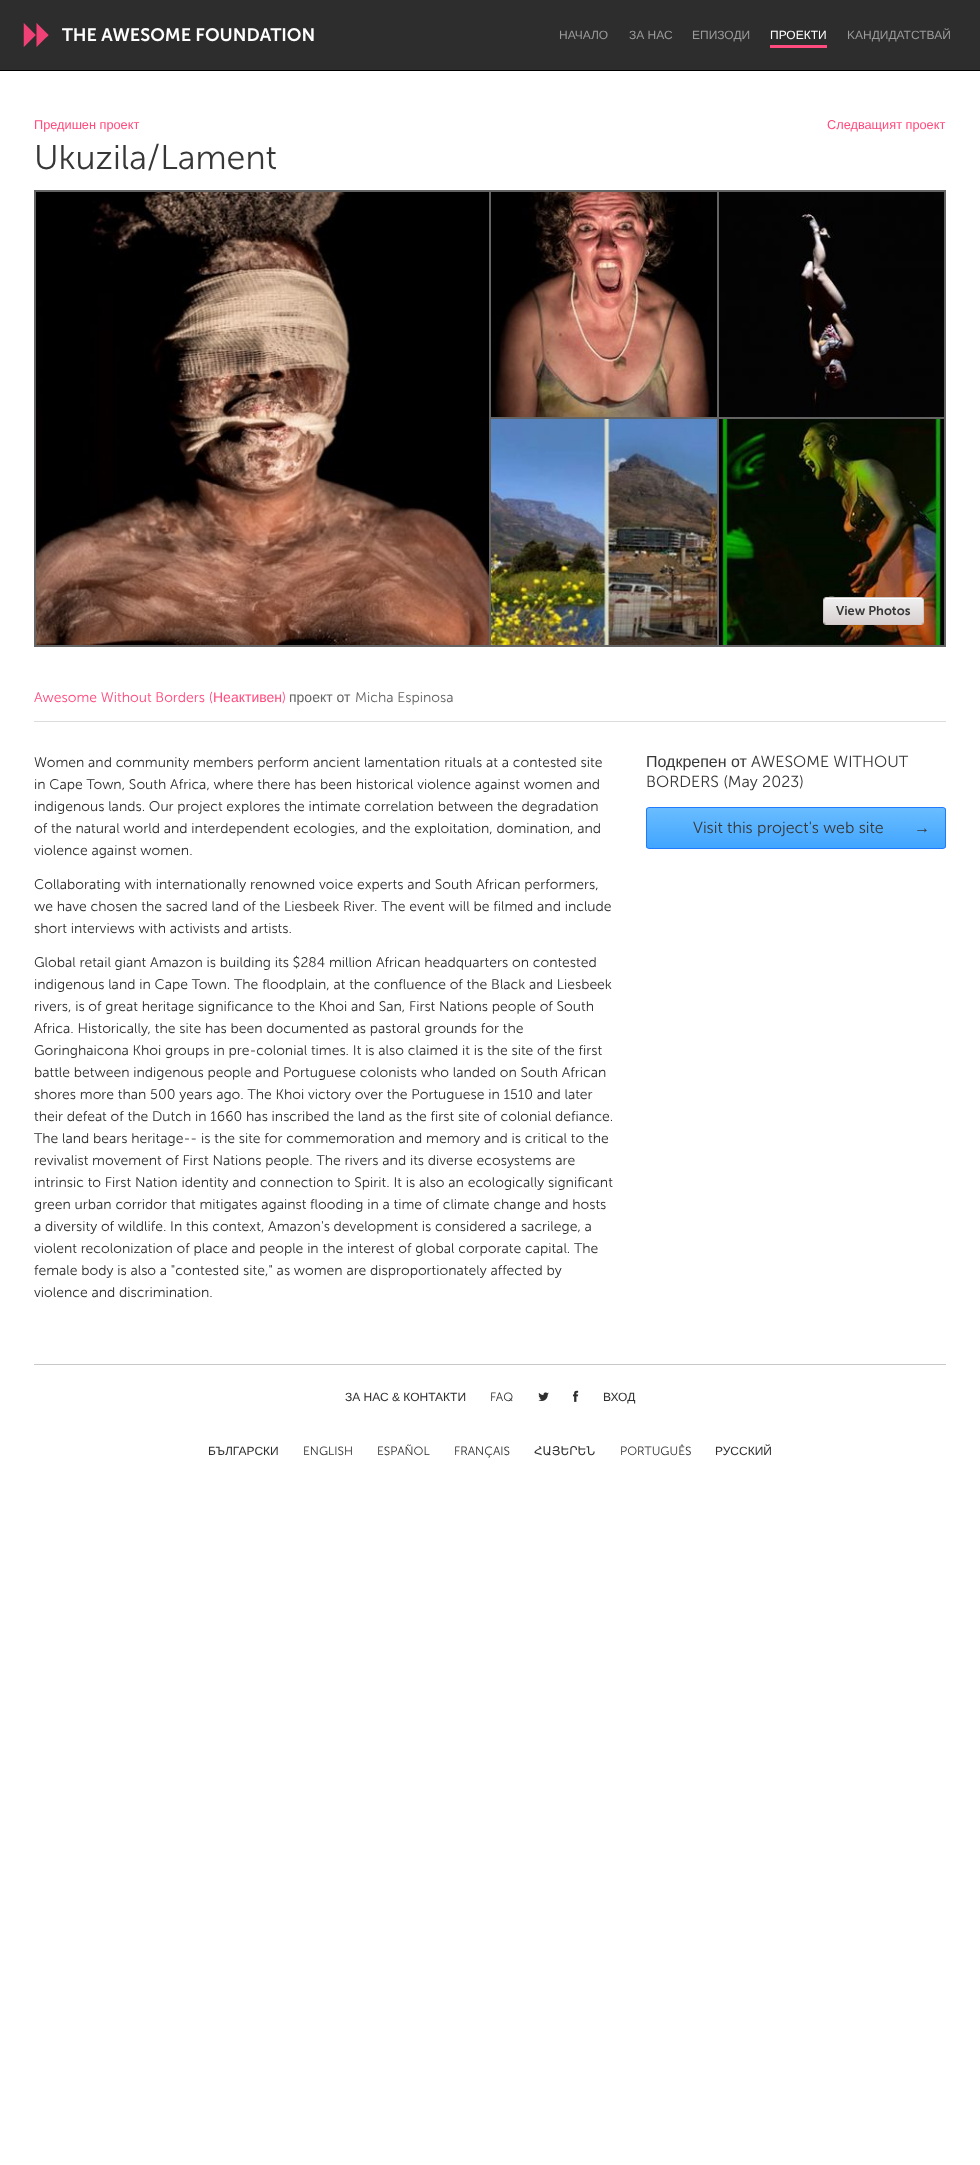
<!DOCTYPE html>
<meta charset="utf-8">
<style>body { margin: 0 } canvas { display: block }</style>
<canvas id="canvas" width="980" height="2165"></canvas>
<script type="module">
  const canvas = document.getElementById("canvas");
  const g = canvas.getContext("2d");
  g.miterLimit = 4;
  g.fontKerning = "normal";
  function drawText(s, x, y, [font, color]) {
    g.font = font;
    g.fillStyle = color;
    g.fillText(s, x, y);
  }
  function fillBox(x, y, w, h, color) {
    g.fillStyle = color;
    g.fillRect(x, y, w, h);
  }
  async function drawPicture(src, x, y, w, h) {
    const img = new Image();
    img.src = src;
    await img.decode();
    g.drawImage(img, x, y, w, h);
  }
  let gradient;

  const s1 = ["600 18px 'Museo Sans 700'", "#FFFFFF"];
  const s2 = ["12px Liberation Sans", "#9B9B9B"];
  const s3 = ["12px Liberation Sans", "#FFFFFF"];
  const s4 = ["12.75px Liberation Sans", "#FF4B7E"];
  const s5 = ["300 34px 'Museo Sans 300'", "#373737"];
  const s6 = ["600 12.75px 'Museo Sans 700'", "#373737"];
  const s7 = ["300 14px 'Museo Sans 300'", "#FF4B7E"];
  const s8 = ["14px Liberation Sans", "#FF4B7E"];
  const s9 = ["14px Liberation Sans", "#646464"];
  const s10 = ["300 14px 'Museo Sans 300'", "#646464"];
  const s11 = ["300 14px 'Museo Sans 300'", "#2E2E2E"];
  const s12 = ["16px Liberation Sans", "#373737"];
  const s13 = ["300 16px 'Museo Sans 300'", "#373737"];
  const s14 = ["12px Liberation Sans", "#2E2E2E"];
  const s15 = ["300 12px 'Museo Sans 300'", "#2E2E2E"];
  const s16 = ["12px DejaVu Sans", "#2E2E2E"];

  fillBox(0, 0, 980, 2165, "#FFFFFF");
  fillBox(0, 0, 980, 70, "#2D2D2D");
  fillBox(0, 70, 980, 1, "#000000");
  await drawPicture("pic1.png", 23, 23, 26, 24);
  drawText("THE AWESOME FOUNDATION", 62, 41, s1);
  drawText("НАЧАЛО", 559, 39, s2);
  drawText("ЗА НАС", 629, 39, s2);
  drawText("ЕПИЗОДИ", 692, 39, s2);
  fillBox(770, 45, 57, 3, "#FF4B7E");
  drawText("ПРОЕКТИ", 770, 39, s3);
  drawText("KАНДИДАТСТВАЙ", 847, 39, s2);
  drawText("Предишен проект", 34, 129, s4);
  drawText("Следващият проект", 827, 129, s4);
  drawText("Ukuzila/Lament", 34, 169, s5);
  fillBox(34, 190, 912, 457, "#646464");
  await drawPicture("pic2.png", 36, 192, 453, 453);
  await drawPicture("pic3.png", 491, 192, 226, 225);
  await drawPicture("pic4.png", 719, 192, 225, 225);
  await drawPicture("pic5.png", 491, 419, 226, 226);
  await drawPicture("pic6.png", 719, 419, 225, 226);
  gradient = g.createLinearGradient(874, 598, 874, 624);
  gradient.addColorStop(0, "#F0F0F0");
  gradient.addColorStop(1, "#D8D0D0");
  g.fillStyle = gradient;
  g.beginPath();
  g.roundRect(824, 598, 99, 26, 2);
  g.fill();
  g.fillStyle = "#FFFFFF";
  g.beginPath();
  g.moveTo(826, 599);
  g.lineTo(921, 599);
  g.bezierCurveTo(922, 599, 923, 600, 923, 601);
  g.bezierCurveTo(923, 600, 923, 598, 921, 598);
  g.lineTo(842, 598);
  g.bezierCurveTo(840, 598, 824, 594, 824, 601);
  g.bezierCurveTo(824, 600, 825, 599, 826, 599);
  g.closePath();
  g.fill();
  g.beginPath();
  g.roundRect(823.5, 597.5, 100, 27, 2.5);
  g.strokeStyle = "#D1C8C8";
  g.stroke();
  drawText("View Photos", 836, 615, s6);
  fillBox(34, 721, 912, 1, "#DCDCDC");
  drawText("Awesome Without Borders (", 34, 702, s7);
  drawText("Неактивен", 213, 702, s8);
  drawText(")", 282, 702, s7);
  drawText("проект от", 289, 702, s9);
  drawText("Micha Espinosa", 355, 702, s10);
  drawText("Women and community members perform ancient lamentation rituals at a contested site", 34, 767, s11);
  drawText("in Cape Town, South Africa, where there has been historical violence against women and", 34, 789, s11);
  drawText("indigenous lands. Our project explores the intimate correlation between the degradation", 34, 811, s11);
  drawText("of the natural world and interdependent ecologies, and the exploitation, domination, and", 34, 833, s11);
  drawText("violence against women.", 34, 855, s11);
  drawText("Collaborating with internationally renowned voice experts and South African performers,", 34, 889, s11);
  drawText("we have chosen the sacred land of the Liesbeek River. The event will be filmed and include", 34, 911, s11);
  drawText("short interviews with activists and artists.", 34, 933, s11);
  drawText("Global retail giant Amazon is building its $284 million African headquarters on contested", 34, 967, s11);
  drawText("indigenous land in Cape Town. The floodplain, at the confluence of the Black and Liesbeek", 34, 989, s11);
  drawText("rivers, is of great heritage significance to the Khoi and San, First Nations people of South", 34, 1011, s11);
  drawText("Africa. Historically, the site has been documented as pastoral grounds for the", 34, 1033, s11);
  drawText("Goringhaicona Khoi groups in pre-colonial times. It is also claimed it is the site of the first", 34, 1055, s11);
  drawText("battle between indigenous people and Portuguese colonists who landed on South African", 34, 1077, s11);
  drawText("shores more than 500 years ago. The Khoi victory over the Portuguese in 1510 and later", 34, 1099, s11);
  drawText("their defeat of the Dutch in 1660 has inscribed the land as the first site of colonial defiance.", 34, 1121, s11);
  drawText("The land bears heritage-- is the site for commemoration and memory and is critical to the", 34, 1143, s11);
  drawText("revivalist movement of First Nations people. The rivers and its diverse ecosystems are", 34, 1165, s11);
  drawText("intrinsic to First Nation identity and connection to Spirit. It is also an ecologically significant", 34, 1187, s11);
  drawText("green urban corridor that mitigates against flooding in a time of climate change and hosts", 34, 1209, s11);
  drawText("a diversity of wildlife. In this context, Amazon's development is considered a sacrilege, a", 34, 1231, s11);
  drawText("violent recolonization of place and people in the interest of global corporate capital. The", 34, 1253, s11);
  drawText("female body is also a \"contested site,\" as women are disproportionately affected by", 34, 1275, s11);
  drawText("violence and discrimination.", 34, 1297, s11);
  drawText("Подкрепен от", 646, 767, s12);
  drawText("AWESOME WITHOUT", 751, 767, s13);
  drawText("BORDERS (May 2023)", 646, 787, s13);
  g.save();
  g.beginPath();
  g.roundRect(646, 807, 300, 42, 3);
  g.clip();
  gradient = g.createLinearGradient(796, 808, 796, 848);
  gradient.addColorStop(0, "#6ABDFF");
  gradient.addColorStop(1, "#41A5FF");
  g.fillStyle = gradient;
  g.fillRect(646, 808, 300, 40);
  g.restore();
  g.beginPath();
  g.roundRect(646.5, 807.5, 299, 41, 2.5);
  g.strokeStyle = "#227AFF";
  g.stroke();
  drawText("Visit this project's web site", 693, 833, s13);
  drawText("→", 914, 833, s12);
  fillBox(34, 1364, 912, 1, "#C8C8C8");
  drawText("ЗА НАС & КОНТАКТИ", 345, 1401, s14);
  drawText("FAQ", 490, 1401, s15);
  await drawPicture("pic7.png", 538, 1392, 11, 9);
  await drawPicture("pic8.png", 573, 1390, 6, 12);
  drawText("ВХОД", 603, 1401, s14);
  drawText("БЪЛГАРСКИ", 208, 1455, s14);
  drawText("ENGLISH", 303, 1455, s15);
  drawText("ESPAÑOL", 377, 1455, s15);
  drawText("FRANÇAIS", 454, 1455, s15);
  drawText("ՀԱՅԵՐԵՆ", 534, 1455, s16);
  drawText("PORTUGUÊS", 620, 1455, s15);
  drawText("РУССКИЙ", 715, 1455, s14);
</script>
